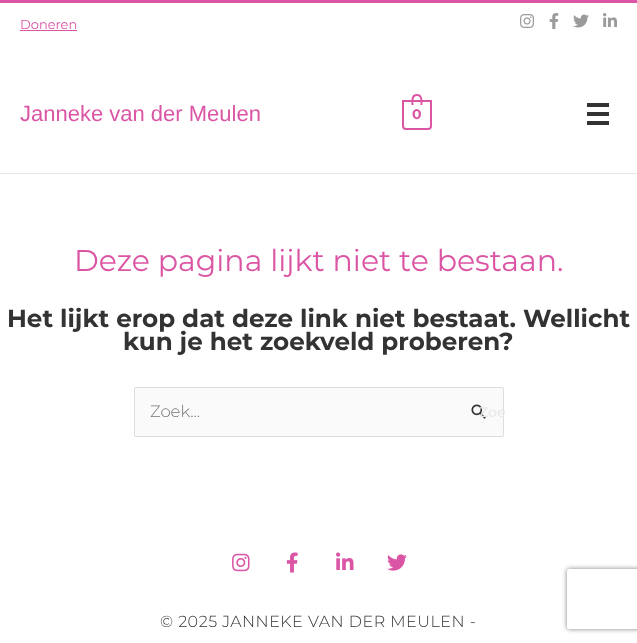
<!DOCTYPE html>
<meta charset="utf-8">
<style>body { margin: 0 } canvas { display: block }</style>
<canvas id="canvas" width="637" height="643"></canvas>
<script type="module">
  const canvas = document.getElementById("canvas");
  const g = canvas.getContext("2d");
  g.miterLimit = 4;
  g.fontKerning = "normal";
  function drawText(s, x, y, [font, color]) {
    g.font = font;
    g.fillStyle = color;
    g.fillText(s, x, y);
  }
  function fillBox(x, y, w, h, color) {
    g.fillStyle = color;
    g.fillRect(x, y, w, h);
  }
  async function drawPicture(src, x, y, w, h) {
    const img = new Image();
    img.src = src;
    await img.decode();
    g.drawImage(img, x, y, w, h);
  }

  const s1 = ["13px Montserrat", "#DB55A5"];
  const s2 = ["22px Liberation Sans", "#DB55A5"];
  const s3 = ["bold 14px Montserrat", "#DB55A5"];
  const s4 = ["30px Montserrat", "#DB55A5"];
  const s5 = ["bold 24.6px Montserrat", "#333333"];
  const s6 = ["300 16.5px Montserrat", "#757575"];
  const s7 = ["500 14px Montserrat", "#E8E8E8"];
  const s8 = ["300 16px Montserrat", "#333333"];

  fillBox(0, 0, 637, 643, "#FFFFFF");
  fillBox(0, 0, 637, 3, "#DB55A5");
  drawText("Doneren", 20, 29, s1);
  fillBox(20, 30, 57, 1, "#DB55A5");
  await drawPicture("pic1.png", 520, 14, 14, 14);
  await drawPicture("pic2.png", 549, 13, 10, 16);
  await drawPicture("pic3.png", 573, 14, 16, 14);
  await drawPicture("pic4.png", 603, 13, 14, 14);
  fillBox(0, 173, 637, 1, "#E6E6E6");
  drawText("Janneke van der Meulen", 20, 121, s2);
  g.beginPath();
  g.roundRect(403, 101, 28, 28, [0, 0, 3, 3]);
  g.strokeStyle = "#DB55A5";
  g.lineWidth = 2;
  g.stroke();
  g.beginPath();
  g.moveTo(417, 94);
  g.bezierCurveTo(423, 94, 422.5, 100.5, 422.5, 105);
  g.lineTo(411.5, 105);
  g.bezierCurveTo(411.5, 100.5, 410.5, 94, 417, 94);
  g.closePath();
  g.moveTo(417, 96);
  g.bezierCurveTo(421.5, 96, 420.5, 102, 420.5, 105);
  g.lineTo(413.5, 105);
  g.bezierCurveTo(413.5, 102, 412.5, 96, 417, 96);
  g.closePath();
  g.fill("evenodd");
  drawText("0", 412, 119, s3);
  fillBox(587, 103, 22, 4, "#333333");
  fillBox(587, 112, 22, 4, "#333333");
  fillBox(587, 121, 22, 4, "#333333");
  drawText("Deze pagina lijkt niet te bestaan.", 74, 271, s4);
  drawText("Het lijkt erop dat deze link niet bestaat. Wellicht", 7, 327, s5);
  drawText("kun je het zoekveld proberen?", 123, 350, s5);
  g.fillStyle = "#FAFAFA";
  g.beginPath();
  g.roundRect(134.5, 387.5, 369, 49, 1.5);
  g.fill();
  g.strokeStyle = "#DDDDDD";
  g.lineWidth = 1;
  g.stroke();
  drawText("Zoek...", 150, 417, s6);
  await drawPicture("pic5.png", 471, 404, 15, 15);
  drawText("Zoe", 479, 417, s7);
  await drawPicture("pic6.png", 232, 553, 18, 19);
  await drawPicture("pic7.png", 286, 552, 12, 21);
  await drawPicture("pic8.png", 336, 552, 18, 18);
  await drawPicture("pic9.png", 387, 554, 20, 17);
  g.letterSpacing = "0.5px";
  drawText("© 2025 JANNEKE VAN DER MEULEN -", 160, 627, s8);
  g.save();
  g.beginPath();
  g.moveTo(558, 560);
  g.lineTo(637, 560);
  g.lineTo(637, 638);
  g.lineTo(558, 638);
  g.closePath();
  g.moveTo(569, 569);
  g.lineTo(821, 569);
  g.bezierCurveTo(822, 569, 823, 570, 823, 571);
  g.lineTo(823, 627);
  g.bezierCurveTo(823, 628, 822, 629, 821, 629);
  g.lineTo(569, 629);
  g.bezierCurveTo(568, 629, 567, 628, 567, 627);
  g.lineTo(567, 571);
  g.bezierCurveTo(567, 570, 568, 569, 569, 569);
  g.closePath();
  g.clip("evenodd");
  g.fillStyle = "#808080";
  g.filter = "blur(2.5px)";
  g.beginPath();
  g.roundRect(567, 569, 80, 60, 2);
  g.fill();
  g.filter = "none";
  g.restore();
</script>
